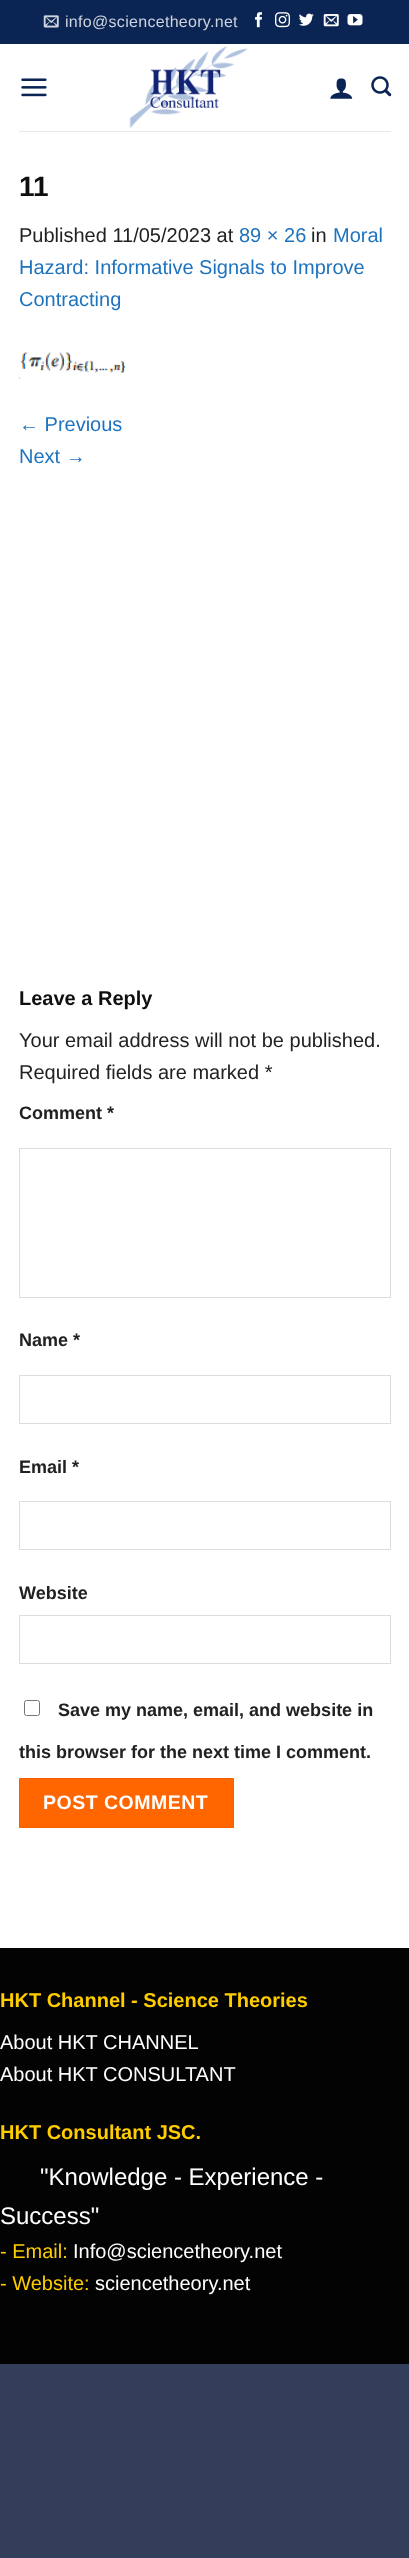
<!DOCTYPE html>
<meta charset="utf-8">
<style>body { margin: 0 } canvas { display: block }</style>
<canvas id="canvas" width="409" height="2558"></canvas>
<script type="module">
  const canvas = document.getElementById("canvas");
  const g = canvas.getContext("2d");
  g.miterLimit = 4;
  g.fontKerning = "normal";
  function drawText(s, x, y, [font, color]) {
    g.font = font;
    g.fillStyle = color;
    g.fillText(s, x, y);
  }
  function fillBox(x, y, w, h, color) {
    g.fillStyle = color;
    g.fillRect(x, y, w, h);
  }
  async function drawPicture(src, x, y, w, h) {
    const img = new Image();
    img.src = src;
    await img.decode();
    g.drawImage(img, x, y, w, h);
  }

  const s1 = ["16px Liberation Sans", "#CED3DD"];
  const s2 = ["bold 28px Liberation Sans", "#0F0F0F"];
  const s3 = ["20px Liberation Sans", "#212121"];
  const s4 = ["20px Liberation Sans", "#1E73BE"];
  const s5 = ["bold 20px Liberation Sans", "#0F0F0F"];
  const s6 = ["bold 18px Liberation Sans", "#212121"];
  const s7 = ["bold 19.5px Liberation Sans", "#FFFFFF"];
  const s8 = ["bold 20px Liberation Sans", "#FFCC00"];
  const s9 = ["20px Liberation Sans", "#FFFFFF"];
  const s10 = ["24px Liberation Sans", "#FFFFFF"];
  const s11 = ["20px Liberation Sans", "#FFCC00"];

  fillBox(0, 0, 409, 2558, "#323E5A");
  fillBox(0, 44, 409, 1904, "#FFFFFF");
  fillBox(0, 0, 409, 44, "#0A2453");
  await drawPicture("pic1.png", 43, 15, 16, 13);
  g.letterSpacing = "0.3px";
  drawText("info@sciencetheory.net", 65, 27, s1);
  await drawPicture("pic2.png", 255, 12, 7, 16);
  await drawPicture("pic3.png", 275, 12, 15, 16);
  await drawPicture("pic4.png", 299, 13, 15, 13);
  await drawPicture("pic5.png", 323, 14, 16, 13);
  await drawPicture("pic6.png", 347, 14, 16, 12);
  await drawPicture("pic7.png", 21, 78, 26, 19);
  await drawPicture("pic8.png", 129, 46, 119, 83);
  await drawPicture("pic9.png", 330, 78, 23, 21);
  await drawPicture("pic10.png", 371, 76, 21, 21);
  fillBox(19, 131, 372, 1, "#E9E9E9");
  g.letterSpacing = "0px";
  drawText("11", 19, 196, s2);
  drawText("Published 11/05/2023 at", 19, 242, s3);
  drawText("89 × 26", 239, 242, s4);
  drawText("in", 311, 242, s3);
  drawText("Moral", 333, 242, s4);
  drawText("Hazard: Informative Signals to Improve", 19, 274, s4);
  drawText("Contracting", 19, 306, s4);
  await drawPicture("pic11.png", 18, 352, 108, 27);
  drawText("← Previous", 19, 431, s4);
  drawText("Next →", 19, 463, s4);
  drawText("Leave a Reply", 19, 1005, s5);
  drawText("Your email address will not be published.", 19, 1047, s3);
  drawText("Required fields are marked *", 19, 1079, s3);
  drawText("Comment *", 19, 1119, s6);
  g.strokeStyle = "#DDDDDD";
  g.strokeRect(19.5, 1148.5, 371, 149);
  drawText("Name *", 19, 1346, s6);
  g.strokeRect(19.5, 1375.5, 371, 48);
  drawText("Email *", 19, 1473, s6);
  g.strokeRect(19.5, 1501.5, 371, 48);
  drawText("Website", 19, 1599, s6);
  g.strokeRect(19.5, 1615.5, 371, 48);
  g.beginPath();
  g.roundRect(24.5, 1700.5, 15, 15, 2);
  g.strokeStyle = "#767676";
  g.stroke();
  drawText("Save my name, email, and website in", 58, 1716, s6);
  drawText("this browser for the next time I comment.", 19, 1758, s6);
  g.fillStyle = "#FF6600";
  g.beginPath();
  g.rect(19.5, 1778.5, 214, 49);
  g.fill();
  g.strokeStyle = "#F26100";
  g.stroke();
  g.letterSpacing = "0.5px";
  drawText("POST COMMENT", 43, 1809, s7);
  fillBox(0, 1948, 409, 416, "#030303");
  g.letterSpacing = "0px";
  drawText("HKT Channel - Science Theories", 0, 2007, s8);
  drawText("About HKT CHANNEL", 0, 2049, s9);
  drawText("About HKT CONSULTANT", 0, 2081, s9);
  drawText("HKT Consultant JSC.", 0, 2139, s8);
  drawText("\"Knowledge - Experience -", 40, 2185, s10);
  drawText("Success\"", 0, 2224, s10);
  drawText("- Email:", 0, 2258, s11);
  drawText("Info@sciencetheory.net", 73, 2258, s9);
  drawText("- Website:", 0, 2290, s11);
  drawText("sciencetheory.net", 95, 2290, s9);
</script>
